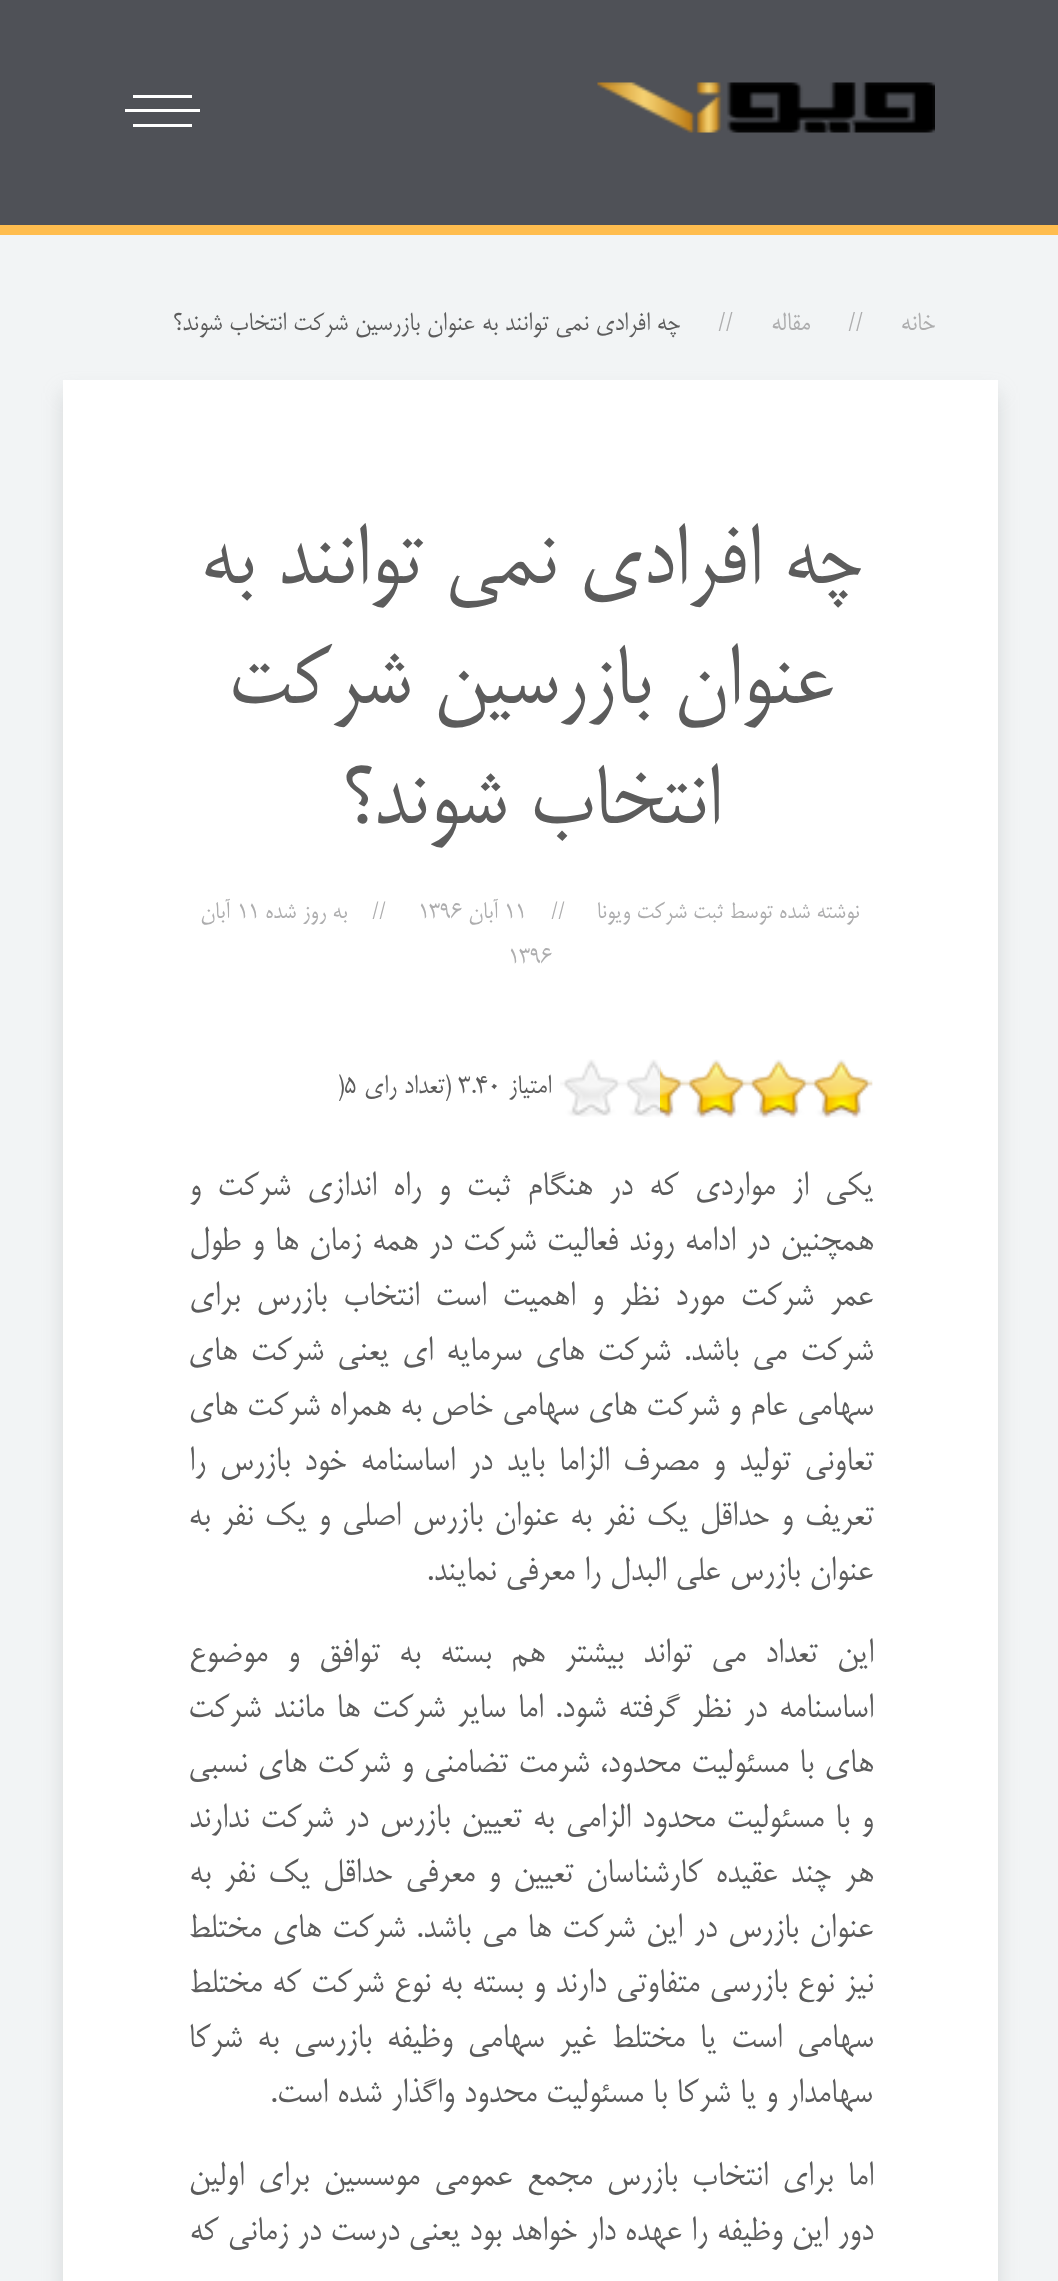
<!DOCTYPE html>
<meta charset="utf-8">
<style>body { margin: 0 } canvas { display: block }</style>
<canvas id="canvas" width="1058" height="2281"></canvas>
<script type="module">
  const canvas = document.getElementById("canvas");
  const g = canvas.getContext("2d");
  g.miterLimit = 4;
  g.fontKerning = "normal";
  function drawText(s, x, y, [font, color]) {
    g.font = font;
    g.fillStyle = color;
    g.fillText(s, x, y);
  }
  function fillBox(x, y, w, h, color) {
    g.fillStyle = color;
    g.fillRect(x, y, w, h);
  }
  async function drawPicture(src, x, y, w, h) {
    const img = new Image();
    img.src = src;
    await img.decode();
    g.drawImage(img, x, y, w, h);
  }

  const s1 = ["30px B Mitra", "#ADADAE"];
  const s2 = ["30px B Mitra", "#5C5C5C"];
  const s3 = ["100px B Mitra", "#5C5C5C"];
  const s4 = ["27.5px B Mitra", "#ADADAE"];
  const s5 = ["31px B Mitra", "#5C5C5C"];
  const s6 = ["40px B Mitra", "#5C5C5C"];

  fillBox(0, 0, 1058, 2281, "#F2F4F5");
  fillBox(0, 0, 1058, 225, "#4F5157");
  fillBox(0, 225, 1058, 10, "#FFBD4F");
  await drawPicture("pic1.png", 597, 82, 338, 51);
  g.fillStyle = "#FFFFFF";
  g.beginPath();
  g.moveTo(133, 95);
  g.lineTo(192, 95);
  g.lineTo(192, 98);
  g.lineTo(133, 98);
  g.closePath();
  g.moveTo(133, 124);
  g.lineTo(192, 124);
  g.lineTo(192, 127);
  g.lineTo(133, 127);
  g.closePath();
  g.moveTo(125, 109);
  g.lineTo(200, 109);
  g.lineTo(200, 112);
  g.lineTo(125, 112);
  g.closePath();
  g.fill();
  g.direction = "rtl";
  drawText("خانه", 935, 330, s1);
  g.direction = "ltr";
  drawText("//", 848, 330, s1);
  g.direction = "rtl";
  drawText("مقاله", 810, 330, s1);
  g.direction = "ltr";
  drawText("//", 718, 330, s1);
  g.direction = "rtl";
  drawText("چه افرادی نمی توانند به عنوان بازرسین شرکت انتخاب شوند؟", 680, 330, s2);
  g.fillStyle = "rgba(160, 166, 168, 0.35)";
  g.filter = "blur(10px)";
  g.beginPath();
  g.rect(63, 393, 935, 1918);
  g.fill();
  g.filter = "none";
  fillBox(63, 380, 935, 1901, "#FFFFFF");
  drawText("چه افرادی نمی توانند به", 861, 583, s3);
  drawText("عنوان بازرسین شرکت", 833, 703, s3);
  drawText("انتخاب شوند؟", 719, 823, s3);
  drawText("نوشته شده توسط", 859, 918, s4);
  drawText("ثبت شرکت ویونا", 723, 918, s4);
  g.direction = "ltr";
  drawText("//", 551, 918, s4);
  drawText("11", 504, 918, s4);
  g.direction = "rtl";
  drawText("آبان", 498, 918, s4);
  g.direction = "ltr";
  drawText("1396", 418, 918, s4);
  drawText("//", 372, 918, s4);
  g.direction = "rtl";
  drawText("به روز شده", 347, 918, s4);
  g.direction = "ltr";
  drawText("11", 237, 918, s4);
  g.direction = "rtl";
  drawText("آبان", 230, 918, s4);
  g.direction = "ltr";
  drawText("1396", 508, 963, s4);
  await drawPicture("pic2.png", 560, 1059, 313, 58);
  await drawPicture("pic3.png", 660, 1060, 213, 58);
  g.direction = "rtl";
  drawText("امتیاز", 551, 1093, s5);
  g.direction = "ltr";
  drawText("3.40", 458, 1093, s5);
  g.direction = "rtl";
  drawText("(تعداد رای", 451, 1093, s5);
  g.direction = "ltr";
  drawText(")5", 337, 1093, s5);
  g.wordSpacing = "7.4px";
  g.direction = "rtl";
  drawText("یکی از مواردی که در هنگام ثبت و راه اندازی شرکت و", 873, 1195, s6);
  g.wordSpacing = "1.5px";
  drawText("همچنین در ادامه روند فعالیت شرکت در همه زمان ها و طول", 873, 1250, s6);
  g.wordSpacing = "7px";
  drawText("عمر شرکت مورد نظر و اهمیت است انتخاب بازرس برای", 873, 1305, s6);
  g.wordSpacing = "4.25px";
  drawText("شرکت می باشد. شرکت های سرمایه ای یعنی شرکت های", 873, 1360, s6);
  g.wordSpacing = "0.1px";
  drawText("سهامی عام و شرکت های سهامی خاص به همراه شرکت های", 873, 1415, s6);
  g.wordSpacing = "4.75px";
  drawText("تعاونی تولید و مصرف الزاما باید در اساسنامه خود بازرس را", 873, 1470, s6);
  g.wordSpacing = "2.4px";
  drawText("تعریف و حداقل یک نفر به عنوان بازرس اصلی و یک نفر به", 873, 1525, s6);
  g.wordSpacing = "0px";
  drawText("عنوان بازرس علی البدل را معرفی نمایند.", 873, 1580, s6);
  g.wordSpacing = "10.25px";
  drawText("این تعداد می تواند بیشتر هم بسته به توافق و موضوع", 873, 1662, s6);
  g.wordSpacing = "2.9px";
  drawText("اساسنامه در نظر گرفته شود. اما سایر شرکت ها مانند شرکت", 873, 1717, s6);
  g.wordSpacing = "1.4px";
  drawText("های با مسئولیت محدود، شرمت تضامنی و شرکت های نسبی", 873, 1772, s6);
  g.wordSpacing = "2.1px";
  drawText("و با مسئولیت محدود الزامی به تعیین بازرس در شرکت ندارند", 873, 1827, s6);
  g.wordSpacing = "3.75px";
  drawText("هر چند عقیده کارشناسان تعیین و معرفی حداقل یک نفر به", 873, 1882, s6);
  g.wordSpacing = "1.75px";
  drawText("عنوان بازرس در این شرکت ها می باشد. شرکت های مختلط", 873, 1937, s6);
  g.wordSpacing = "0.6px";
  drawText("نیز نوع بازرسی متفاوتی دارند و بسته به نوع شرکت که مختلط", 873, 1992, s6);
  g.wordSpacing = "5.75px";
  drawText("سهامی است یا مختلط غیر سهامی وظیفه بازرسی به شرکا", 873, 2047, s6);
  g.wordSpacing = "0px";
  drawText("سهامدار و یا شرکا با مسئولیت محدود واگذار شده است.", 872, 2102, s6);
  g.wordSpacing = "5.25px";
  drawText("اما برای انتخاب بازرس مجمع عمومی موسسین برای اولین", 873, 2185, s6);
  g.wordSpacing = "0px";
  drawText("دور این وظیفه را عهده دار خواهد بود یعنی درست در زمانی که", 873, 2240, s6);
</script>
